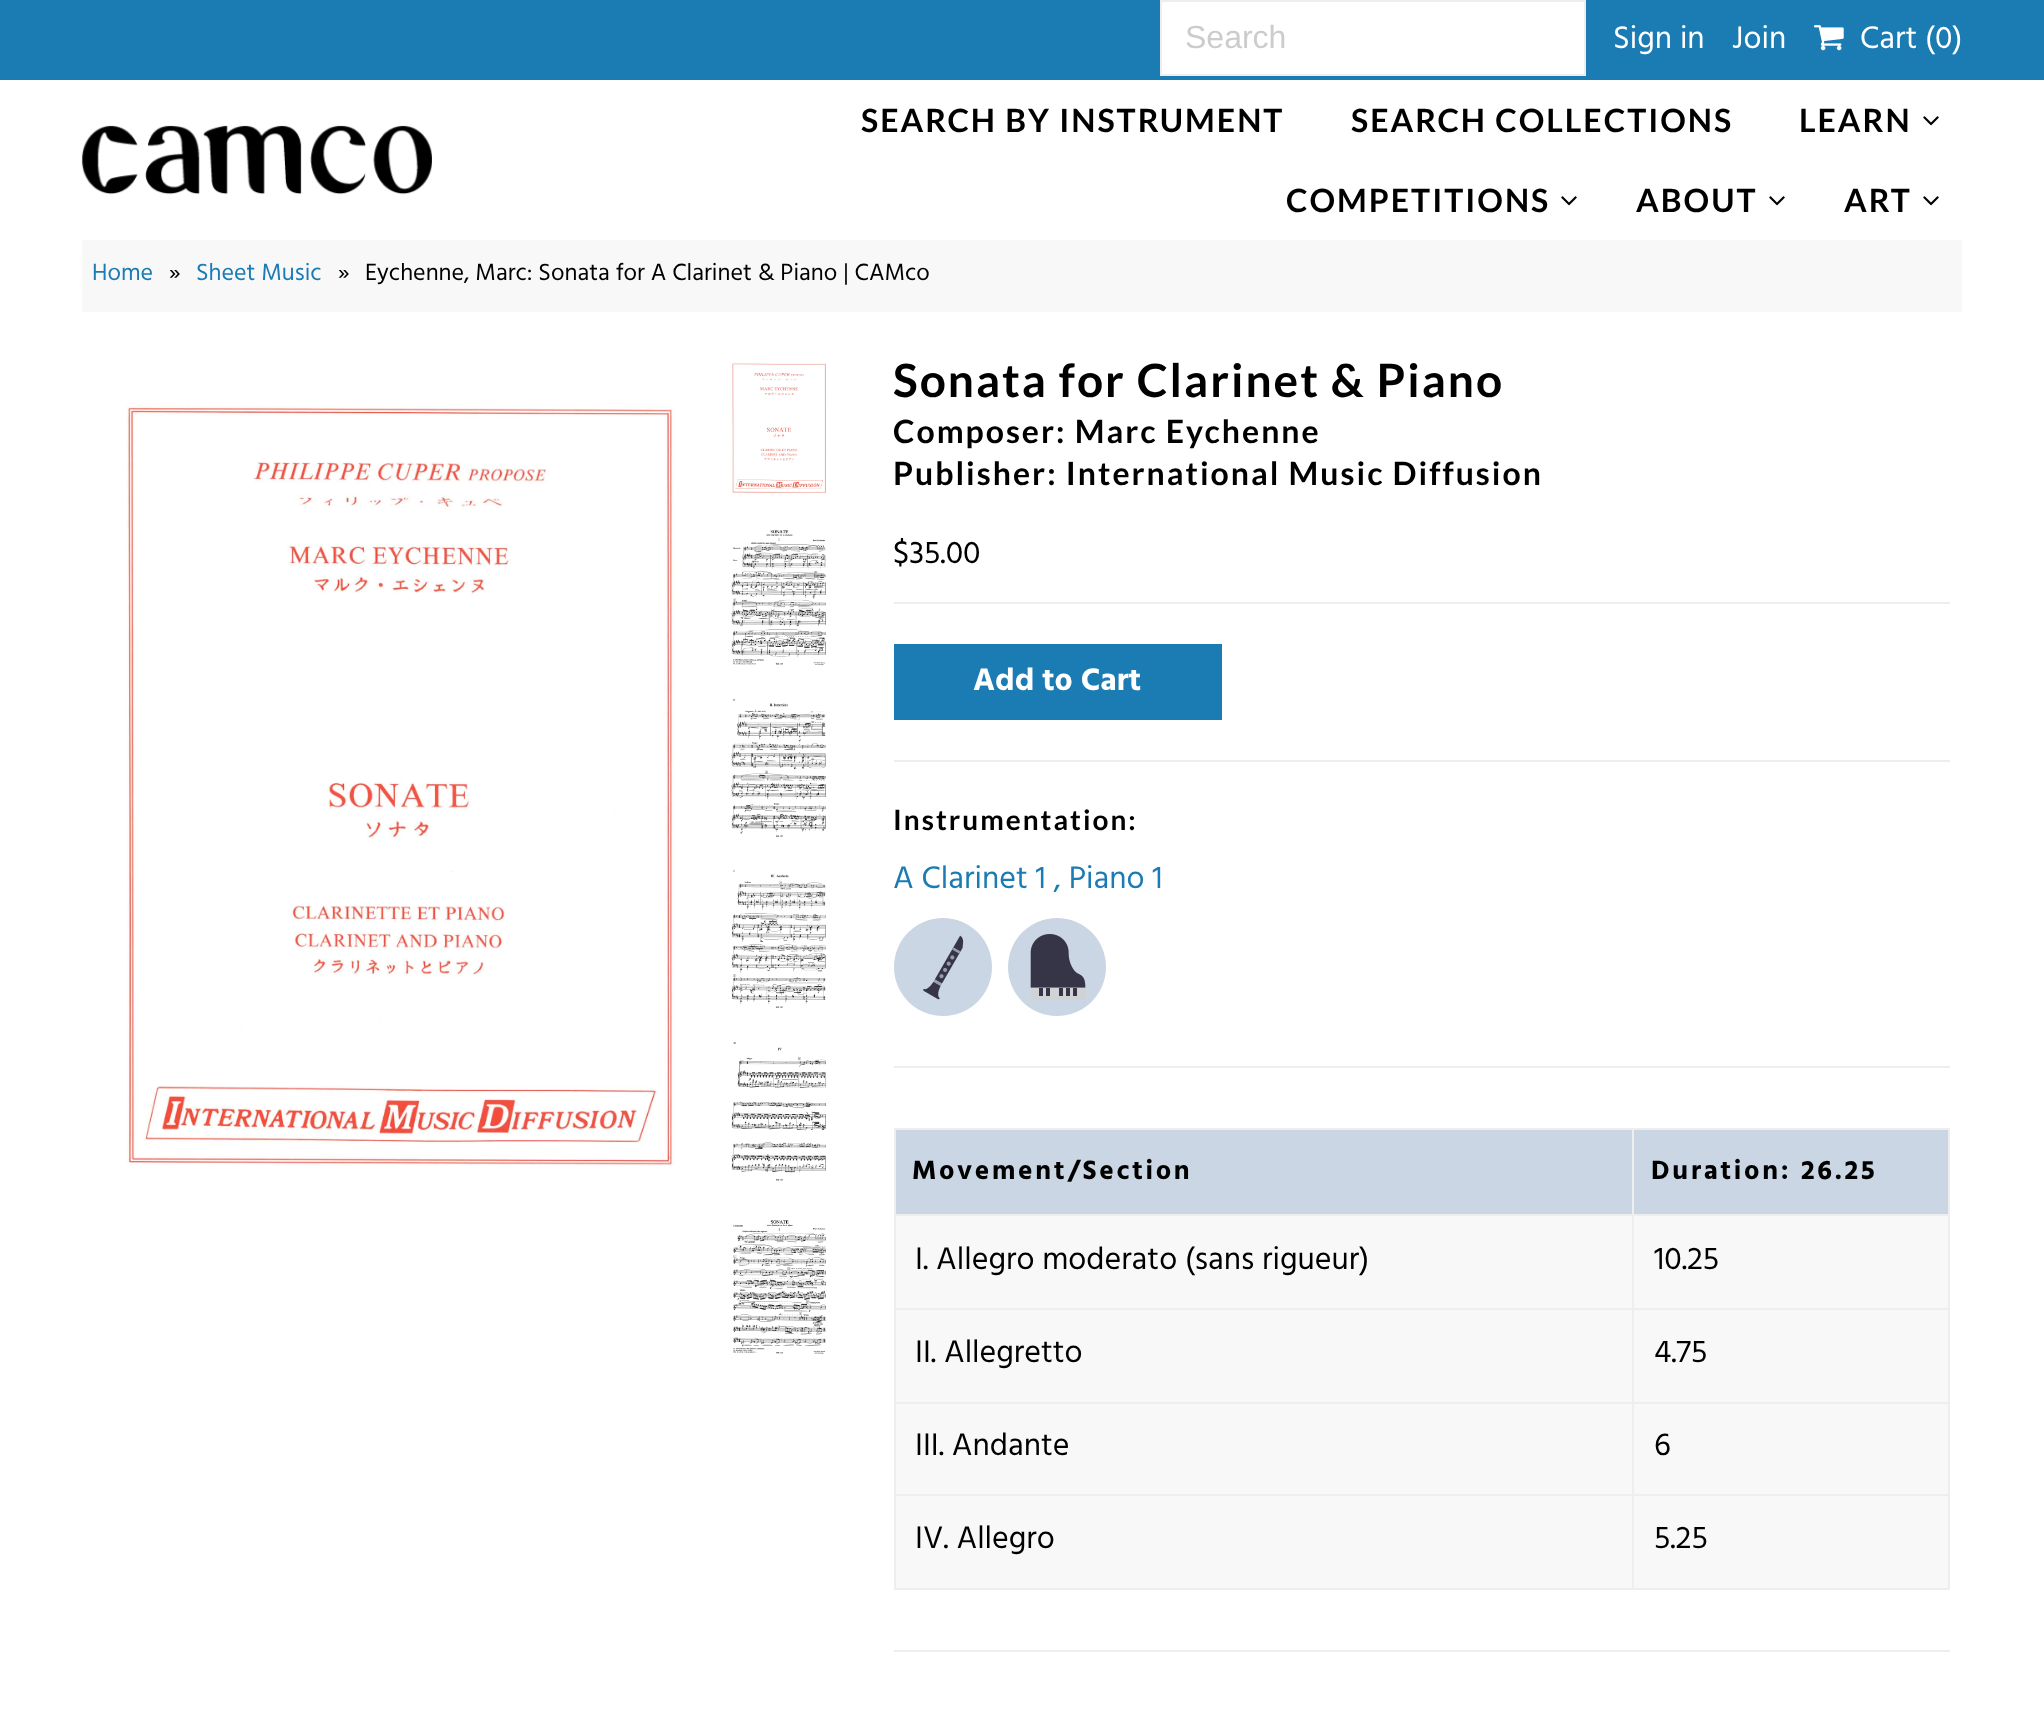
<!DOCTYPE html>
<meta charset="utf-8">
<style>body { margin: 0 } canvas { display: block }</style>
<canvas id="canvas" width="2044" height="1719"></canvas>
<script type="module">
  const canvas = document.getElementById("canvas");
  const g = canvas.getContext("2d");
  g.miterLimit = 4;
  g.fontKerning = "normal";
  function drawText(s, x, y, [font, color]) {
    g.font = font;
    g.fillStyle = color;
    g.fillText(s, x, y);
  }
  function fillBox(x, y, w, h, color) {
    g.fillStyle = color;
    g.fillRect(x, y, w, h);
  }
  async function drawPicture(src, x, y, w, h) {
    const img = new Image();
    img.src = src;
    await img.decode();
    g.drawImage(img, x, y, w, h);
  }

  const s1 = ["32px Liberation Sans", "#CCCCCC"];
  const s2 = ["32px Hind", "#FFFFFF"];
  const s3 = ["bold 32px Lato", "#000000"];
  const s4 = ["24px Hind", "#1B7BB3"];
  const s5 = ["24px Hind", "#000000"];
  const s6 = ["bold 46px Lato", "#000000"];
  const s7 = ["32px Hind", "#000000"];
  const s8 = ["bold 32px Hind", "#FFFFFF"];
  const s9 = ["bold 28px Lato", "#000000"];
  const s10 = ["32px Hind", "#1B7BB3"];
  const s11 = ["bold 27.25px Hind", "#000000"];

  fillBox(0, 0, 2044, 1719, "#FFFFFF");
  fillBox(0, 0, 2044, 80, "#1B7BB3");
  g.fillStyle = "#FFFFFF";
  g.beginPath();
  g.rect(1161, 1, 424, 74);
  g.fill();
  g.strokeStyle = "#EEEEEE";
  g.lineWidth = 2;
  g.stroke();
  drawText("Search", 1185, 48, s1);
  drawText("Sign in", 1613, 48, s2);
  drawText("Join", 1732, 48, s2);
  await drawPicture("pic1.png", 1814, 25, 30, 26);
  drawText("Cart (0)", 1860, 48, s2);
  await drawPicture("pic2.png", 81, 125, 351, 70);
  g.letterSpacing = "2px";
  drawText("SEARCH BY INSTRUMENT", 861, 132, s3);
  drawText("SEARCH COLLECTIONS", 1351, 132, s3);
  drawText("LEARN", 1799, 132, s3);
  await drawPicture("pic3.png", 1923, 116, 16, 10);
  drawText("COMPETITIONS", 1286, 212, s3);
  await drawPicture("pic3.png", 1561, 196, 16, 10);
  drawText("ABOUT", 1636, 212, s3);
  await drawPicture("pic3.png", 1769, 196, 16, 10);
  drawText("ART", 1844, 212, s3);
  await drawPicture("pic3.png", 1923, 196, 16, 10);
  fillBox(82, 240, 1880, 72, "#F8F8F8");
  g.letterSpacing = "0px";
  drawText("Home", 92, 280, s4);
  drawText("»", 169, 280, s5);
  drawText("Sheet Music", 196, 280, s4);
  drawText("»", 338, 280, s5);
  drawText("Eychenne, Marc: Sonata for A Clarinet & Piano | CAMco", 365, 280, s5);
  await drawPicture("pic4.png", 118, 405, 557, 761);
  await drawPicture("pic5.png", 732, 363, 94, 130);
  await drawPicture("pic6.png", 731, 530, 95, 135);
  await drawPicture("pic7.png", 731, 699, 95, 138);
  await drawPicture("pic8.png", 731, 869, 95, 139);
  await drawPicture("pic9.png", 731, 1042, 96, 139);
  await drawPicture("pic10.png", 733, 1220, 93, 134);
  g.letterSpacing = "2px";
  drawText("Sonata for Clarinet & Piano", 893, 397, s6);
  drawText("Composer: Marc Eychenne", 893, 443, s3);
  drawText("Publisher: International Music Diffusion", 893, 485, s3);
  g.letterSpacing = "0px";
  drawText("$35.00", 893, 563, s7);
  fillBox(894, 602, 1056, 2, "#EEEEEE");
  fillBox(894, 760, 1056, 2, "#EEEEEE");
  fillBox(894, 644, 328, 76, "#1B7BB3");
  drawText("Add to Cart", 973, 690, s8);
  fillBox(894, 1066, 1056, 2, "#EEEEEE");
  g.letterSpacing = "2px";
  drawText("Instrumentation:", 893, 830, s9);
  g.letterSpacing = "0px";
  drawText("A Clarinet 1 , Piano 1", 893, 888, s10);
  g.fillStyle = "#CAD6E3";
  g.beginPath();
  g.arc(943, 967, 49, 0, Math.PI * 2);
  g.fill();
  await drawPicture("pic11.png", 923, 935, 41, 65);
  g.beginPath();
  g.arc(1057, 967, 49, 0, Math.PI * 2);
  g.fill();
  await drawPicture("pic12.png", 1030, 934, 56, 66);
  fillBox(894, 1650, 1056, 2, "#EEEEEE");
  fillBox(896, 1130, 736, 84, "#CAD6E3");
  fillBox(1632, 1128, 318, 2, "#EEEEEE");
  fillBox(1632, 1214, 318, 2, "#EEEEEE");
  fillBox(896, 1216, 1052, 92, "#F8F8F8");
  fillBox(1632, 1308, 318, 2, "#EEEEEE");
  fillBox(896, 1310, 1052, 92, "#F8F8F8");
  fillBox(1632, 1402, 318, 2, "#EEEEEE");
  fillBox(896, 1404, 1052, 90, "#F8F8F8");
  fillBox(1632, 1494, 318, 2, "#EEEEEE");
  fillBox(896, 1496, 1052, 92, "#F8F8F8");
  fillBox(1948, 1494, 2, 96, "#EEEEEE");
  fillBox(1632, 1588, 318, 2, "#EEEEEE");
  fillBox(1632, 1494, 2, 96, "#EEEEEE");
  fillBox(894, 1494, 740, 2, "#EEEEEE");
  fillBox(1632, 1402, 2, 94, "#EEEEEE");
  fillBox(894, 1402, 740, 2, "#EEEEEE");
  fillBox(1632, 1308, 2, 96, "#EEEEEE");
  fillBox(894, 1308, 740, 2, "#EEEEEE");
  fillBox(1632, 1214, 2, 96, "#EEEEEE");
  fillBox(894, 1214, 740, 2, "#EEEEEE");
  fillBox(1632, 1128, 2, 88, "#EEEEEE");
  fillBox(894, 1128, 740, 2, "#EEEEEE");
  fillBox(894, 1588, 740, 2, "#EEEEEE");
  fillBox(894, 1494, 2, 96, "#EEEEEE");
  fillBox(894, 1402, 2, 94, "#EEEEEE");
  fillBox(894, 1308, 2, 96, "#EEEEEE");
  fillBox(894, 1214, 2, 96, "#EEEEEE");
  fillBox(894, 1128, 2, 88, "#EEEEEE");
  g.letterSpacing = "2.75px";
  drawText("Movement/Section", 912, 1179, s11);
  fillBox(1634, 1130, 314, 84, "#CAD6E3");
  fillBox(1948, 1402, 2, 94, "#EEEEEE");
  fillBox(1948, 1308, 2, 96, "#EEEEEE");
  fillBox(1948, 1214, 2, 96, "#EEEEEE");
  fillBox(1948, 1128, 2, 88, "#EEEEEE");
  drawText("Duration: 26.25", 1651, 1179, s11);
  g.letterSpacing = "0px";
  drawText("I. Allegro moderato (sans rigueur)", 915, 1269, s7);
  drawText("10.25", 1654, 1269, s7);
  drawText("II. Allegretto", 915, 1362, s7);
  drawText("4.75", 1654, 1362, s7);
  drawText("III. Andante", 915, 1455, s7);
  drawText("6", 1654, 1455, s7);
  drawText("IV. Allegro", 915, 1548, s7);
  drawText("5.25", 1654, 1548, s7);
</script>
